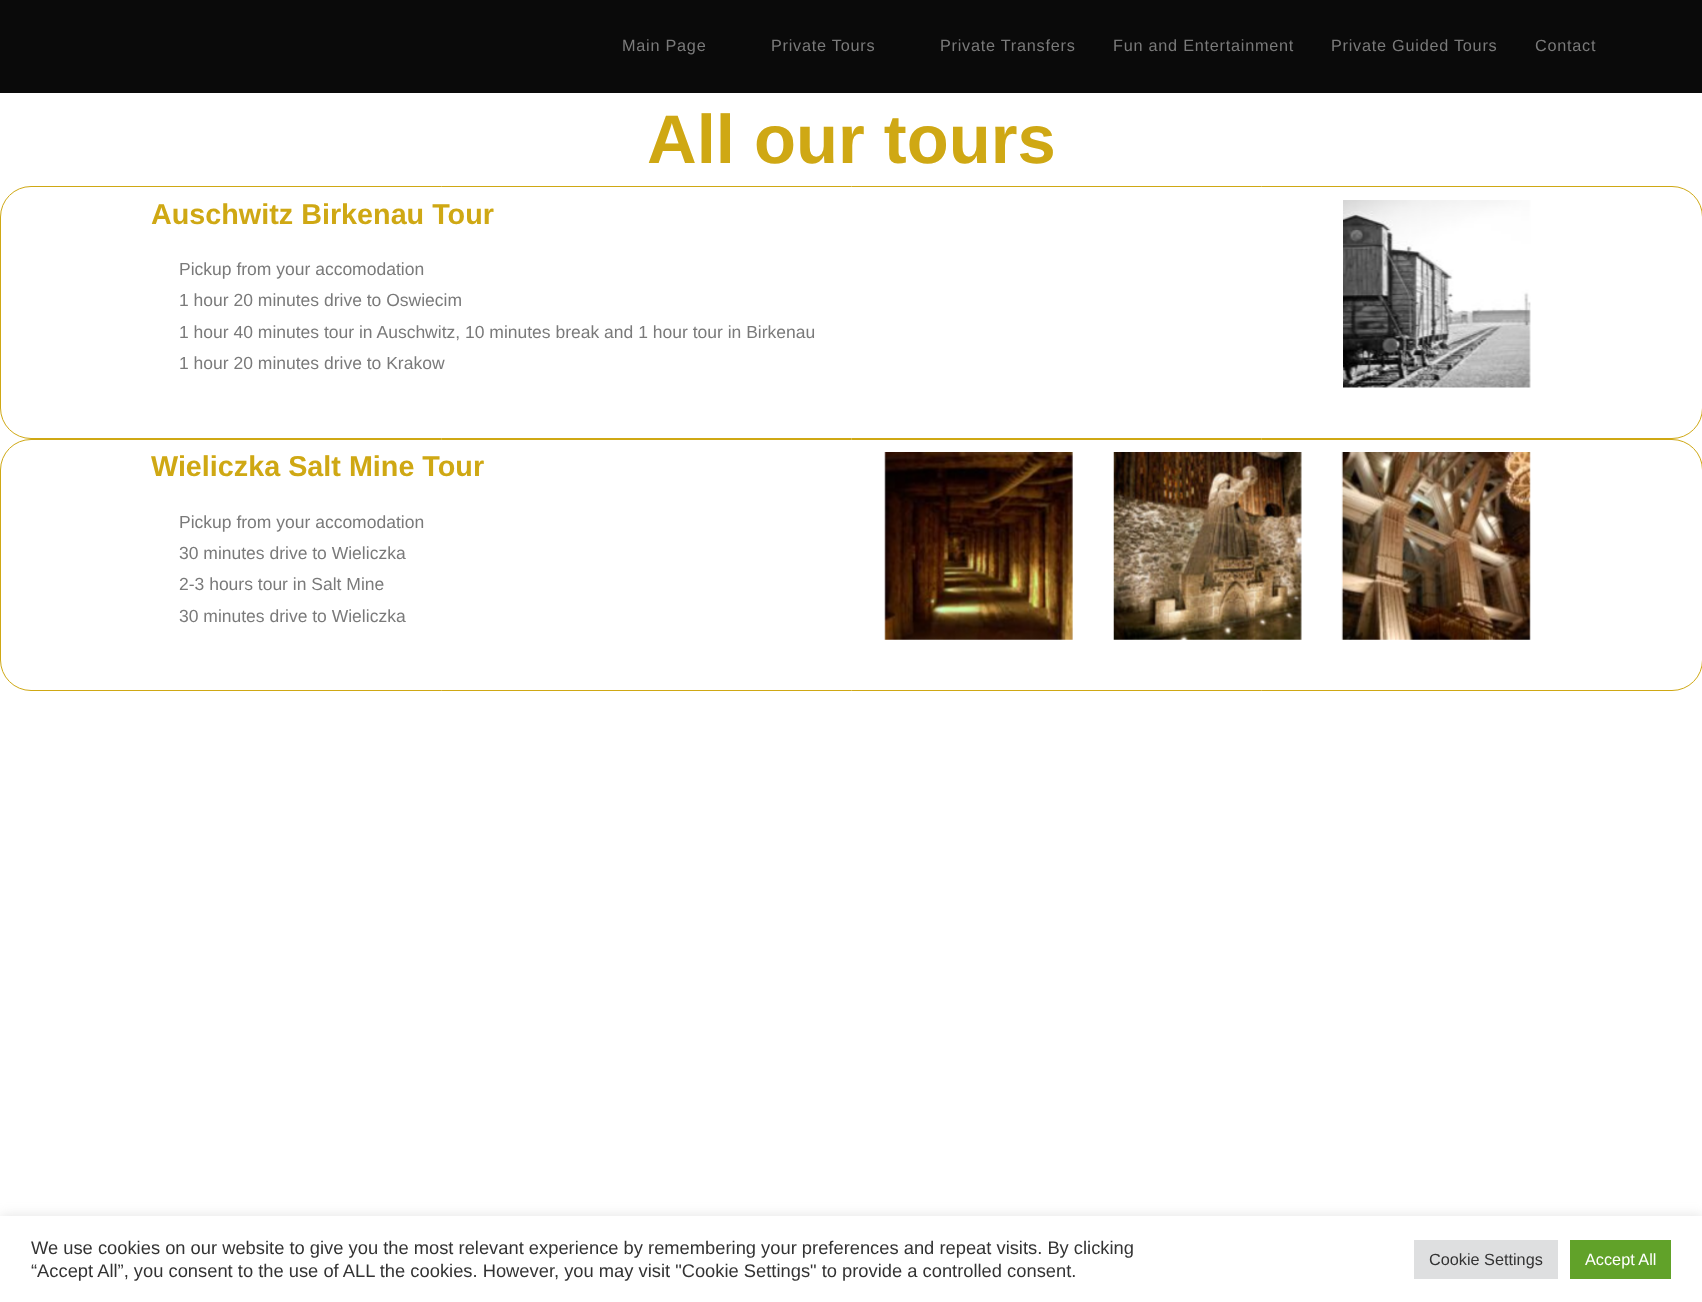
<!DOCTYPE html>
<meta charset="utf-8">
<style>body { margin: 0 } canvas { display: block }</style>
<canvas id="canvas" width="1702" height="1302"></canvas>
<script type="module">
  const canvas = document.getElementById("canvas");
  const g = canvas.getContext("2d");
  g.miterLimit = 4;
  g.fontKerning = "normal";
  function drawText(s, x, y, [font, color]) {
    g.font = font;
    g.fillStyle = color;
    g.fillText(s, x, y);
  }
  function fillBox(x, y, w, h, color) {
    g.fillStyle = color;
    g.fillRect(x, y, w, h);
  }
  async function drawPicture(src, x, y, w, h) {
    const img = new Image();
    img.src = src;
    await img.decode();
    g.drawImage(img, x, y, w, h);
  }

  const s1 = ["16.25px Liberation Sans", "#7A7A7A"];
  const s2 = ["bold 68.75px Liberation Sans", "#CFA814"];
  const s3 = ["bold 28.75px Liberation Sans", "#CFA814"];
  const s4 = ["17.5px Liberation Sans", "#7A7A7A"];
  const s5 = ["18.33px Liberation Sans", "#333333"];
  const s6 = ["16.25px Liberation Sans", "#333333"];
  const s7 = ["16.25px Liberation Sans", "#FFFFFF"];

  fillBox(0, 0, 1702, 1302, "#FFFFFF");
  fillBox(0, 0, 1702, 93, "#0A0A0A");
  g.letterSpacing = "0.75px";
  drawText("Main Page", 622, 51, s1);
  drawText("Private Tours", 771, 51, s1);
  drawText("Private Transfers", 940, 51, s1);
  drawText("Fun and Entertainment", 1113, 51, s1);
  drawText("Private Guided Tours", 1331, 51, s1);
  drawText("Contact", 1535, 51, s1);
  g.letterSpacing = "0px";
  drawText("All our tours", 647, 163, s2);
  g.beginPath();
  g.roundRect(0.5, 186.5, 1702, 252, 30.5);
  g.strokeStyle = "#CFA814";
  g.stroke();
  drawText("Auschwitz Birkenau Tour", 151, 224, s3);
  drawText("Pickup from your accomodation", 179, 275, s4);
  drawText("1 hour 20 minutes drive to Oswiecim", 179, 306, s4);
  drawText("1 hour 40 minutes tour in Auschwitz, 10 minutes break and 1 hour tour in Birkenau", 179, 338, s4);
  drawText("1 hour 20 minutes drive to Krakow", 179, 369, s4);
  await drawPicture("pic1.png", 1343, 200, 188, 188);
  g.beginPath();
  g.roundRect(0.5, 439.5, 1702, 251, 30.5);
  g.stroke();
  drawText("Wieliczka Salt Mine Tour", 151, 476, s3);
  drawText("Pickup from your accomodation", 179, 528, s4);
  drawText("30 minutes drive to Wieliczka", 179, 559, s4);
  drawText("2-3 hours tour in Salt Mine", 179, 590, s4);
  drawText("30 minutes drive to Wieliczka", 179, 622, s4);
  await drawPicture("pic2.png", 884, 452, 189, 188);
  await drawPicture("pic3.png", 1113, 452, 189, 188);
  await drawPicture("pic4.png", 1341, 452, 190, 188);
  g.fillStyle = "rgba(172, 171, 171, 0.3)";
  g.filter = "blur(6px)";
  g.beginPath();
  g.rect(0, 1215, 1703, 86);
  g.fill();
  g.filter = "none";
  fillBox(0, 1216, 1702, 86, "#FFFFFF");
  drawText("We use cookies on our website to give you the most relevant experience by remembering your preferences and repeat visits. By clicking", 31, 1254, s5);
  drawText("“Accept All”, you consent to the use of ALL the cookies. However, you may visit \"Cookie Settings\" to provide a controlled consent.", 31, 1277, s5);
  fillBox(1414, 1240, 144, 39, "#DEDFE0");
  drawText("Cookie Settings", 1429, 1265, s6);
  fillBox(1570, 1240, 101, 39, "#61A229");
  drawText("Accept All", 1585, 1265, s7);
</script>
